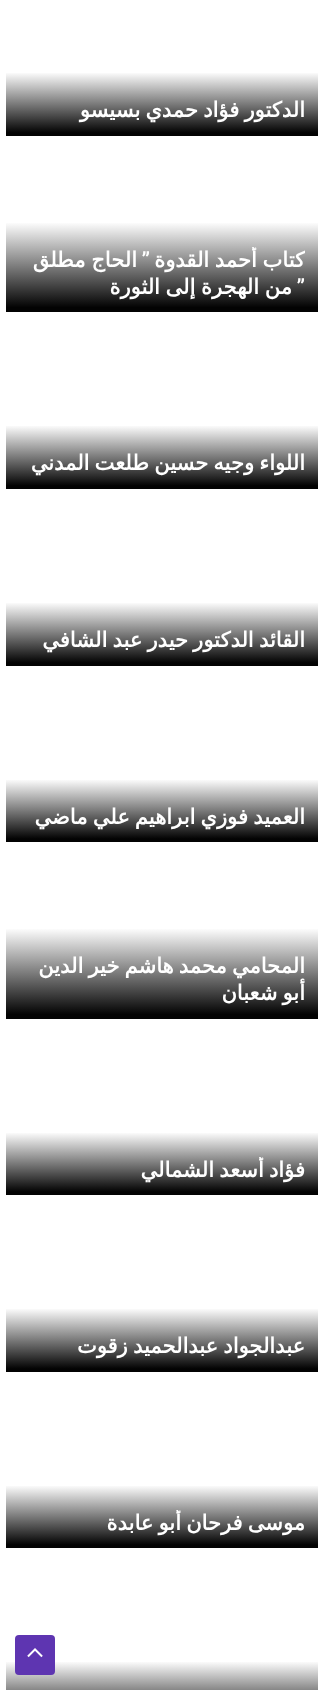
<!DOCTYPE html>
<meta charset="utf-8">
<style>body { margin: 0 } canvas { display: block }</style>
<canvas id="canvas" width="324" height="1690"></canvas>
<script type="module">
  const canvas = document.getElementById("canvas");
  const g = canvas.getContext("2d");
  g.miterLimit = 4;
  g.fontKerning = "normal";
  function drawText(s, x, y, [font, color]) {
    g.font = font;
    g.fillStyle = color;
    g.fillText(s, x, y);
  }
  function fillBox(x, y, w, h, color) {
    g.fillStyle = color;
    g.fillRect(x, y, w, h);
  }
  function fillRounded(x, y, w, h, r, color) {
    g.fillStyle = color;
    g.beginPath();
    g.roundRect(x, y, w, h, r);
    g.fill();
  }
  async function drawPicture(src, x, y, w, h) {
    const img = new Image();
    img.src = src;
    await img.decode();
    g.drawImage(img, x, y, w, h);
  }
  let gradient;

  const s1 = ["bold 21px DejaVu Sans", "#FFFFFF"];
  const s2 = ["bold 21px Roboto", "#FFFFFF"];

  fillBox(0, 0, 324, 1690, "#FFFFFF");
  gradient = g.createLinearGradient(162, 72, 162, 136);
  gradient.addColorStop(0, "#FFFFFF");
  gradient.addColorStop(0.95, "#030303");
  g.fillStyle = gradient;
  g.fillRect(6, 73, 312, 63);
  g.wordSpacing = "-1.5px";
  g.direction = "rtl";
  drawText("الدكتور فؤاد حمدي بسيسو", 305, 117, s1);
  gradient = g.createLinearGradient(162, 222, 162, 312);
  gradient.addColorStop(0, "#FFFFFF");
  gradient.addColorStop(0.95, "#030303");
  g.fillStyle = gradient;
  g.fillRect(6, 223, 312, 89);
  g.save();
  g.beginPath();
  g.rect(19, 247, 286, 54);
  g.clip();
  g.wordSpacing = "-1px";
  drawText("كتاب أحمد القدوة", 305, 267, s1);
  g.restore();
  g.wordSpacing = "0px";
  drawText("”", 150, 267, s2);
  g.wordSpacing = "-1px";
  drawText("الحاج مطلق", 137, 267, s1);
  g.wordSpacing = "0px";
  drawText("”", 305, 294, s2);
  g.wordSpacing = "-1px";
  drawText("من الهجرة إلى الثورة", 292, 294, s1);
  gradient = g.createLinearGradient(162, 425, 162, 489);
  gradient.addColorStop(0, "#FFFFFF");
  gradient.addColorStop(0.95, "#030303");
  g.fillStyle = gradient;
  g.fillRect(6, 426, 312, 63);
  g.wordSpacing = "-1.5px";
  drawText("اللواء وجيه حسين طلعت المدني", 305, 470, s1);
  gradient = g.createLinearGradient(162, 602, 162, 666);
  gradient.addColorStop(0, "#FFFFFF");
  gradient.addColorStop(0.95, "#030303");
  g.fillStyle = gradient;
  g.fillRect(6, 603, 312, 63);
  drawText("القائد الدكتور حيدر عبد الشافي", 305, 647, s1);
  gradient = g.createLinearGradient(162, 779, 162, 842);
  gradient.addColorStop(0, "#FFFFFF");
  gradient.addColorStop(0.95, "#030303");
  g.fillStyle = gradient;
  g.fillRect(6, 780, 312, 62);
  drawText("العميد فوزي ابراهيم علي ماضي", 305, 824, s1);
  gradient = g.createLinearGradient(162, 928, 162, 1019);
  gradient.addColorStop(0, "#FFFFFF");
  gradient.addColorStop(0.95, "#030303");
  g.fillStyle = gradient;
  g.fillRect(6, 929, 312, 90);
  drawText("المحامي محمد هاشم خير الدين", 305, 973, s1);
  drawText("أبو شعبان", 305, 1000, s1);
  gradient = g.createLinearGradient(162, 1132, 162, 1195);
  gradient.addColorStop(0, "#FFFFFF");
  gradient.addColorStop(0.95, "#030303");
  g.fillStyle = gradient;
  g.fillRect(6, 1133, 312, 62);
  g.save();
  g.beginPath();
  g.rect(19, 1157, 286, 27);
  g.clip();
  drawText("فؤاد أسعد الشمالي", 305, 1177, s1);
  g.restore();
  gradient = g.createLinearGradient(162, 1308, 162, 1372);
  gradient.addColorStop(0, "#FFFFFF");
  gradient.addColorStop(0.95, "#030303");
  g.fillStyle = gradient;
  g.fillRect(6, 1309, 312, 63);
  drawText("عبدالجواد عبدالحميد زقوت", 305, 1353, s1);
  gradient = g.createLinearGradient(162, 1485, 162, 1548);
  gradient.addColorStop(0, "#FFFFFF");
  gradient.addColorStop(0.95, "#030303");
  g.fillStyle = gradient;
  g.fillRect(6, 1486, 312, 62);
  g.save();
  g.beginPath();
  g.rect(19, 1510, 286, 27);
  g.clip();
  drawText("موسى فرحان أبو عابدة", 305, 1530, s1);
  g.restore();
  gradient = g.createLinearGradient(162, 1661, 162, 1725);
  gradient.addColorStop(0, "#FFFFFF");
  gradient.addColorStop(0.95, "#030303");
  g.fillStyle = gradient;
  g.fillRect(6, 1662, 312, 28);
  fillRounded(15, 1635, 40, 40, 4, "#5E35B1");
  await drawPicture("pic1.png", 27, 1648, 16, 10);
</script>
